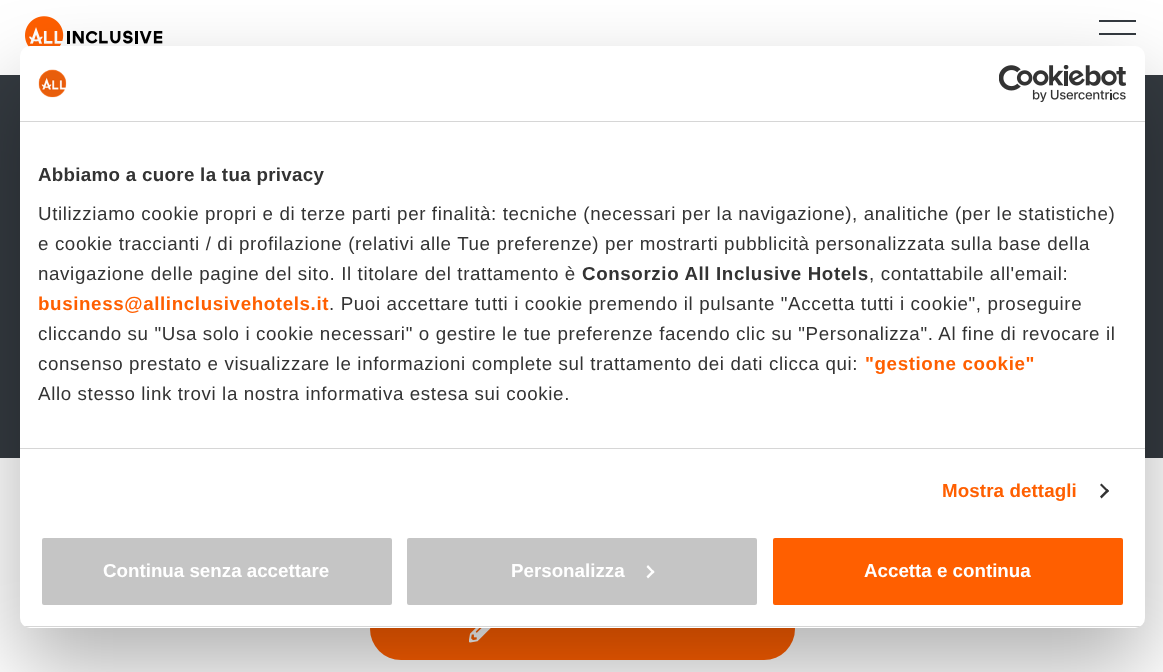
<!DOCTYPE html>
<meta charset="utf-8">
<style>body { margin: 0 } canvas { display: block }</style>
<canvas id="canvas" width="1163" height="672"></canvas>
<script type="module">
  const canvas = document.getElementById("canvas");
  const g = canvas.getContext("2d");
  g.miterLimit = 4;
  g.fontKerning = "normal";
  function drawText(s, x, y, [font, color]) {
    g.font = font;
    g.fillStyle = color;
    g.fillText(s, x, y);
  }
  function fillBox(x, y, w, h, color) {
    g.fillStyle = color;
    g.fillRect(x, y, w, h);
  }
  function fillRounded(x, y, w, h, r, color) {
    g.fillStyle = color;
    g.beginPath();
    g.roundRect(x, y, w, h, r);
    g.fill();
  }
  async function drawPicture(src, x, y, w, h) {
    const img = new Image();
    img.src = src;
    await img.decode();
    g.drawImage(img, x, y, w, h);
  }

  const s1 = ["bold 18.75px Liberation Sans", "#333333"];
  const s2 = ["18.75px Liberation Sans", "#333333"];
  const s3 = ["bold 18.75px Liberation Sans", "#FF5F00"];
  const s4 = ["bold 18.75px Liberation Sans", "#FFFFFF"];

  fillBox(0, 0, 1163, 672, "#FFFFFF");
  await drawPicture("pic1.png", 25, 16, 138, 31);
  fillBox(1099, 20, 37, 2, "#343A40");
  fillBox(1099, 33, 37, 2, "#343A40");
  fillBox(0, 75, 1163, 383, "#343A40");
  fillRounded(370, 598, 425, 62, 31, "#FF5F00");
  await drawPicture("pic4.png", 469, 628, 22, 15);
  g.fillStyle = "rgba(0, 0, 0, 0.3)";
  g.filter = "blur(42.5px)";
  g.beginPath();
  g.roundRect(20, 86, 1125, 582, 10);
  g.fill();
  g.filter = "none";
  fillRounded(20, 46, 1125, 582, 10, "#FFFFFF");
  fillBox(20, 121, 1125, 1, "#D6D6D6");
  await drawPicture("pic2.png", 38, 69, 29, 29);
  await drawPicture("pic3.png", 999, 65, 127, 38);
  fillBox(20, 448, 1125, 1, "#D6D6D6");
  g.letterSpacing = "0.3px";
  drawText("Abbiamo a cuore la tua privacy", 38, 181, s1);
  g.letterSpacing = "0.62px";
  drawText("Utilizziamo cookie propri e di terze parti per finalità: tecniche (necessari per la navigazione), analitiche (per le statistiche)", 38, 220, s2);
  drawText("e cookie traccianti / di profilazione (relativi alle Tue preferenze) per mostrarti pubblicità personalizzata sulla base della", 38, 250, s2);
  drawText("navigazione delle pagine del sito. Il titolare del trattamento è", 38, 280, s2);
  drawText("Consorzio All Inclusive Hotels", 582, 280, s1);
  drawText(", contattabile all'email:", 869, 280, s2);
  drawText("business@allinclusivehotels.it", 38, 310, s3);
  drawText(". Puoi accettare tutti i cookie premendo il pulsante \"Accetta tutti i cookie\", proseguire", 329, 310, s2);
  drawText("cliccando su \"Usa solo i cookie necessari\" o gestire le tue preferenze facendo clic su \"Personalizza\". Al fine di revocare il", 38, 340, s2);
  drawText("consenso prestato e visualizzare le informazioni complete sul trattamento dei dati clicca qui:", 38, 370, s2);
  drawText("\"gestione cookie\"", 865, 370, s3);
  drawText("Allo stesso link trovi la nostra informativa estesa sui cookie.", 38, 400, s2);
  g.letterSpacing = "0.1px";
  drawText("Mostra dettagli", 942, 497, s3);
  g.fillStyle = "#333333";
  g.beginPath();
  g.moveTo(1101.5, 483.5);
  g.lineTo(1109, 491);
  g.lineTo(1107.5, 492.5);
  g.lineTo(1100, 485);
  g.closePath();
  g.fill();
  g.beginPath();
  g.moveTo(1107.5, 489);
  g.lineTo(1109, 491);
  g.lineTo(1101.5, 498.5);
  g.lineTo(1100, 496.5);
  g.closePath();
  g.fill();
  g.save();
  g.beginPath();
  g.roundRect(20, 46, 1125, 582, 10);
  g.clip();
  fillBox(20, 626, 1125, 1, "#D6D6D6");
  g.restore();
  g.fillStyle = "#C5C5C5";
  g.beginPath();
  g.roundRect(40.5, 536.5, 353, 70, 3.5);
  g.fill();
  g.strokeStyle = "#FFFFFF";
  g.lineWidth = 3;
  g.stroke();
  g.letterSpacing = "0px";
  drawText("Continua senza accettare", 103, 577, s4);
  g.fillStyle = "#C5C5C5";
  g.beginPath();
  g.roundRect(405.5, 536.5, 353, 70, 3.5);
  g.fill();
  g.stroke();
  drawText("Personalizza", 511, 577, s4);
  g.beginPath();
  g.moveTo(648, 565);
  g.lineTo(654.5, 572);
  g.lineTo(653, 573.5);
  g.lineTo(646.5, 567);
  g.closePath();
  g.fill();
  g.beginPath();
  g.moveTo(653, 570);
  g.lineTo(654.5, 572);
  g.lineTo(648, 578.5);
  g.lineTo(646.5, 576.5);
  g.closePath();
  g.fill();
  g.fillStyle = "#FF5F00";
  g.beginPath();
  g.roundRect(771.5, 536.5, 353, 70, 3.5);
  g.fill();
  g.stroke();
  drawText("Accetta e continua", 864, 577, s4);
</script>
